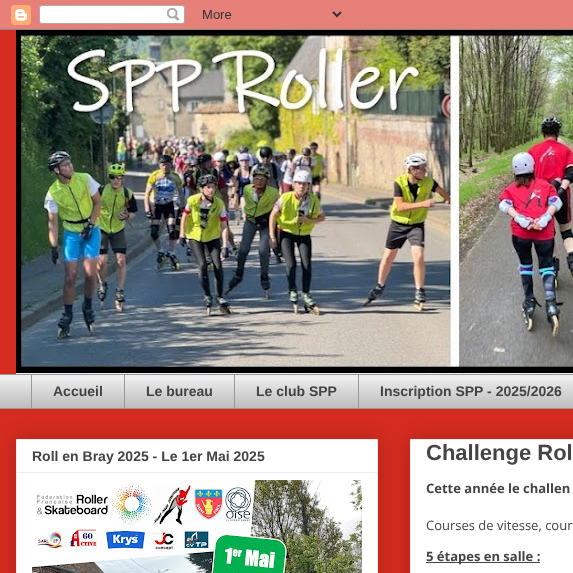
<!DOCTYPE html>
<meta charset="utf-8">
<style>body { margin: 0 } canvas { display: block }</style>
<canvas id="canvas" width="573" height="573"></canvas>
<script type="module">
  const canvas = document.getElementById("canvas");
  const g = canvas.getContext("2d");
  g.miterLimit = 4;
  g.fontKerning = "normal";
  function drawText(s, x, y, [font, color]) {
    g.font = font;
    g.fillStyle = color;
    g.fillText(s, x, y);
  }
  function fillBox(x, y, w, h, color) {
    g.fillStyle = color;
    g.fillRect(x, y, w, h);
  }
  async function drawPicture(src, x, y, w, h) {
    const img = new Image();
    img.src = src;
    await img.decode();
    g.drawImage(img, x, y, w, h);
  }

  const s1 = ["bold 14px Liberation Sans", "#444444"];
  const s2 = ["bold 22px Liberation Sans", "#444444"];
  const s3 = ["bold 13px Open Sans", "#444444"];
  const s4 = ["13px Open Sans", "#444444"];

  fillBox(0, 0, 573, 573, "#D52C1F");
  await drawPicture("pic1.png", 0, 0, 573, 30);
  await drawPicture("pic2.png", 16, 30, 557, 344);
  fillBox(0, 375, 573, 33, "#EEEEEE");
  await drawPicture("pic3.png", 0, 380, 573, 28);
  fillBox(0, 374, 573, 1, "#999999");
  fillBox(31, 374, 1, 35, "#999999");
  drawText("Accueil", 53, 396, s1);
  fillBox(124, 374, 1, 35, "#999999");
  drawText("Le bureau", 146, 396, s1);
  fillBox(234, 374, 1, 35, "#999999");
  drawText("Le club SPP", 256, 396, s1);
  fillBox(358, 374, 1, 35, "#999999");
  drawText("Inscription SPP - 2025/2026", 380, 396, s1);
  fillBox(0, 408, 573, 1, "#999999");
  g.fillStyle = "rgba(0, 0, 0, 0.2)";
  g.filter = "blur(10px)";
  g.beginPath();
  g.rect(16, 439, 362, 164);
  g.fill();
  g.filter = "none";
  g.fillStyle = "#FFFFFF";
  g.beginPath();
  g.rect(16.5, 439.5, 361, 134);
  g.fill();
  g.strokeStyle = "#EEEEEE";
  g.stroke();
  drawText("Roll en Bray 2025 - Le 1er Mai 2025", 32, 461, s1);
  fillBox(17, 472, 360, 1, "#EEEEEE");
  await drawPicture("pic4.png", 32, 480, 330, 93);
  g.fillStyle = "rgba(0, 0, 0, 0.2)";
  g.filter = "blur(10px)";
  g.beginPath();
  g.rect(410, 439, 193, 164);
  g.fill();
  g.filter = "none";
  g.fillStyle = "#FFFFFF";
  g.beginPath();
  g.rect(410.5, 439.5, 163, 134);
  g.fill();
  g.stroke();
  drawText("Challenge Rol", 426, 460, s2);
  drawText("Cette année le challen", 426, 493, s3);
  drawText("Courses de vitesse, cour", 426, 530, s4);
  fillBox(426, 562, 114, 1, "#444444");
  drawText("5 étapes en salle :", 426, 561, s3);
</script>
